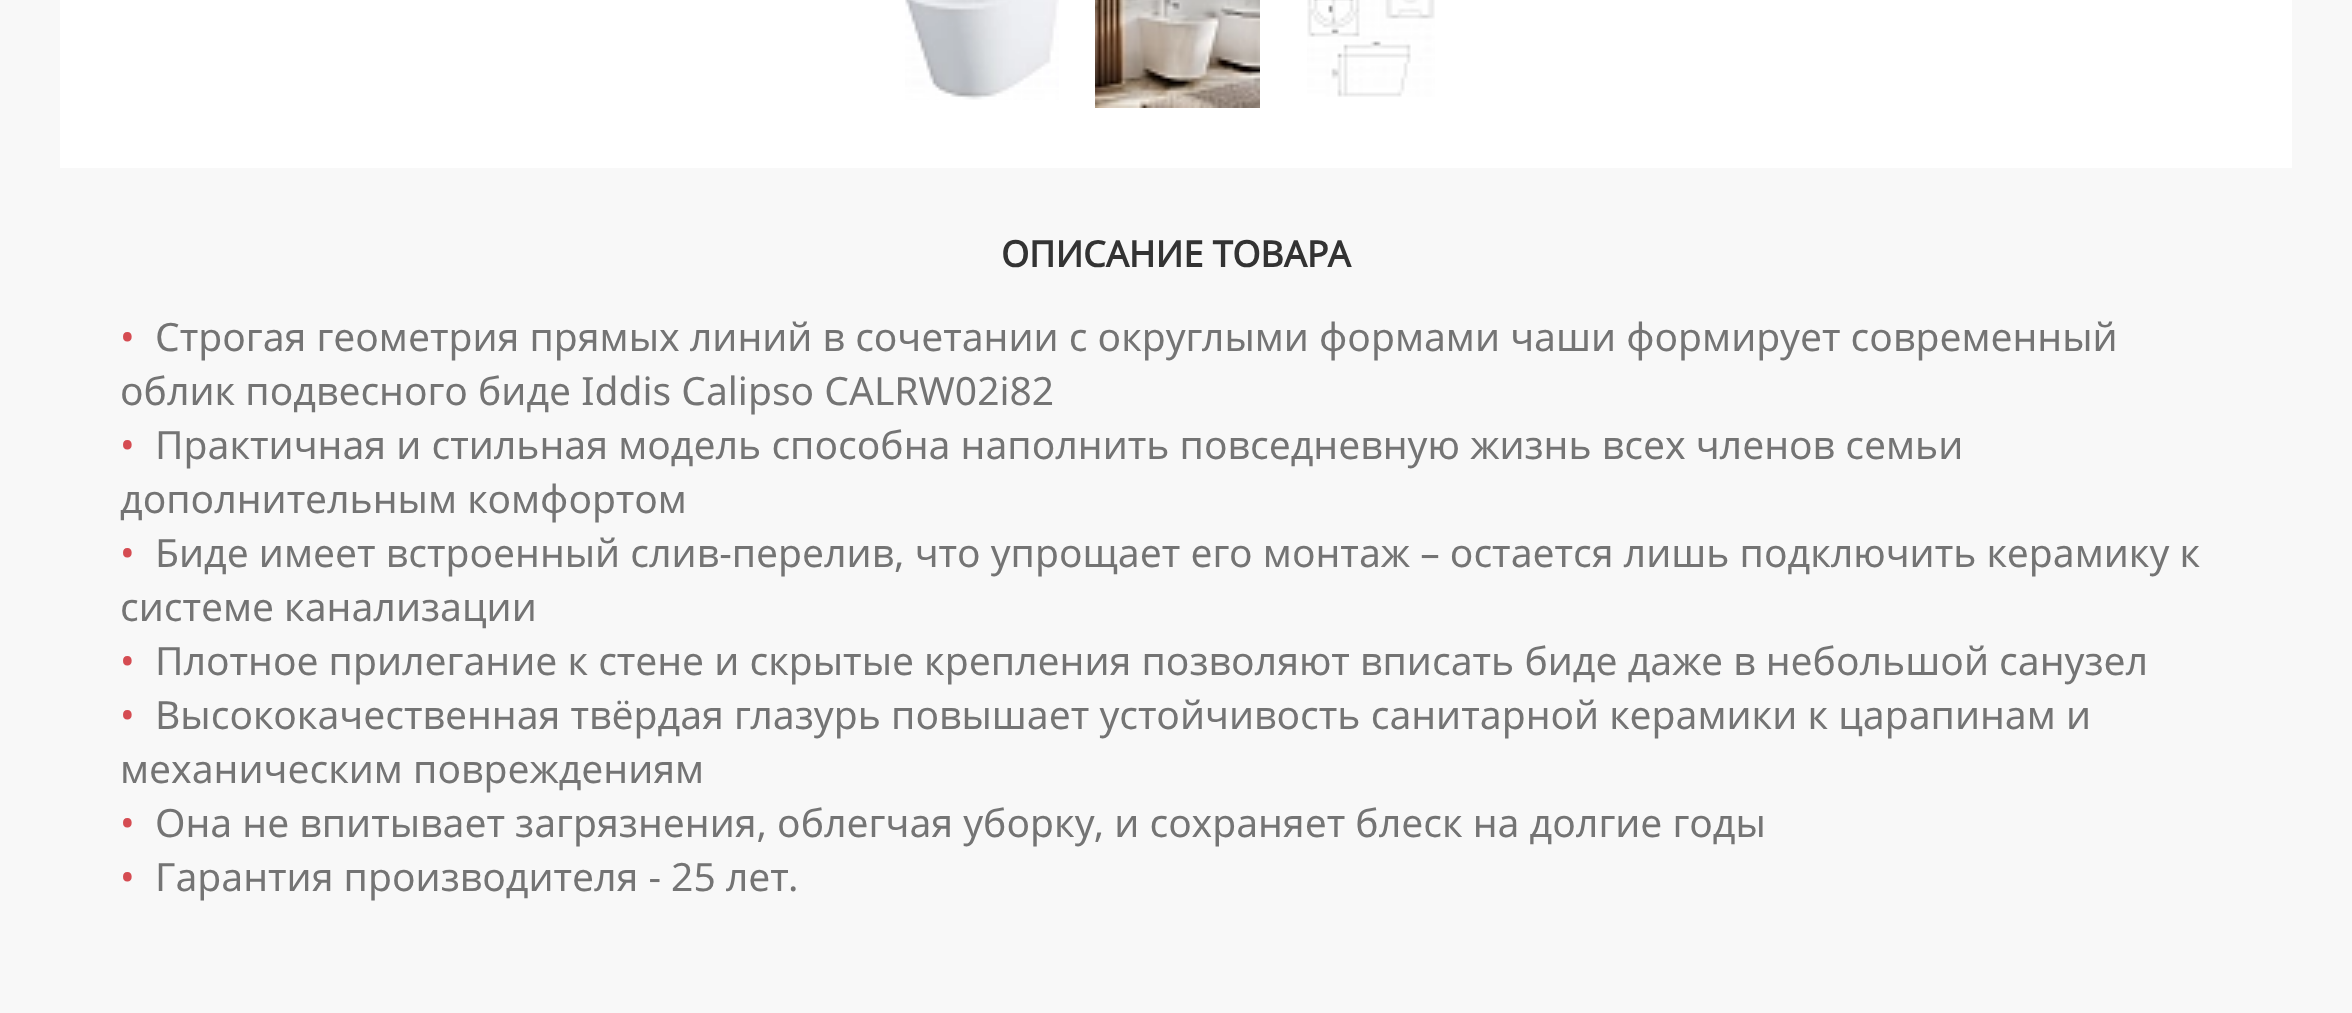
<!DOCTYPE html>
<meta charset="utf-8">
<style>body { margin: 0 } canvas { display: block }</style>
<canvas id="canvas" width="2352" height="1013"></canvas>
<script type="module">
  const canvas = document.getElementById("canvas");
  const g = canvas.getContext("2d");
  g.miterLimit = 4;
  g.fontKerning = "normal";
  function drawText(s, x, y, [font, color]) {
    g.font = font;
    g.fillStyle = color;
    g.fillText(s, x, y);
  }
  function fillBox(x, y, w, h, color) {
    g.fillStyle = color;
    g.fillRect(x, y, w, h);
  }
  async function drawPicture(src, x, y, w, h) {
    const img = new Image();
    img.src = src;
    await img.decode();
    g.drawImage(img, x, y, w, h);
  }

  const s1 = ["bold 36px Noto Sans", "#333333"];
  const s2 = ["39px Noto Sans", "#D54C52"];
  const s3 = ["39px Noto Sans", "#747474"];

  fillBox(0, 0, 2352, 1013, "#F8F8F8");
  fillBox(60, 0, 2232, 168, "#FFFFFF");
  await drawPicture("pic1.png", 905, 0, 154, 100);
  await drawPicture("pic2.png", 1095, 0, 165, 108);
  await drawPicture("pic3.png", 1307, 0, 128, 97);
  drawText("ОПИСАНИЕ ТОВАРА", 1001, 267, s1);
  drawText("•", 120, 351, s2);
  drawText("Строгая геометрия прямых линий в сочетании с округлыми формами чаши формирует современный", 155, 351, s3);
  drawText("облик подвесного биде Iddis Calipso CALRW02i82", 120, 405, s3);
  drawText("•", 120, 459, s2);
  drawText("Практичная и стильная модель способна наполнить повседневную жизнь всех членов семьи", 155, 459, s3);
  drawText("дополнительным комфортом", 120, 513, s3);
  drawText("•", 120, 567, s2);
  drawText("Биде имеет встроенный слив-перелив, что упрощает его монтаж – остается лишь подключить керамику к", 155, 567, s3);
  drawText("системе канализации", 120, 621, s3);
  drawText("•", 120, 675, s2);
  drawText("Плотное прилегание к стене и скрытые крепления позволяют вписать биде даже в небольшой санузел", 155, 675, s3);
  drawText("•", 120, 729, s2);
  drawText("Высококачественная твёрдая глазурь повышает устойчивость санитарной керамики к царапинам и", 155, 729, s3);
  drawText("механическим повреждениям", 120, 783, s3);
  drawText("•", 120, 837, s2);
  drawText("Она не впитывает загрязнения, облегчая уборку, и сохраняет блеск на долгие годы", 155, 837, s3);
  drawText("•", 120, 891, s2);
  drawText("Гарантия производителя - 25 лет.", 155, 891, s3);
</script>
